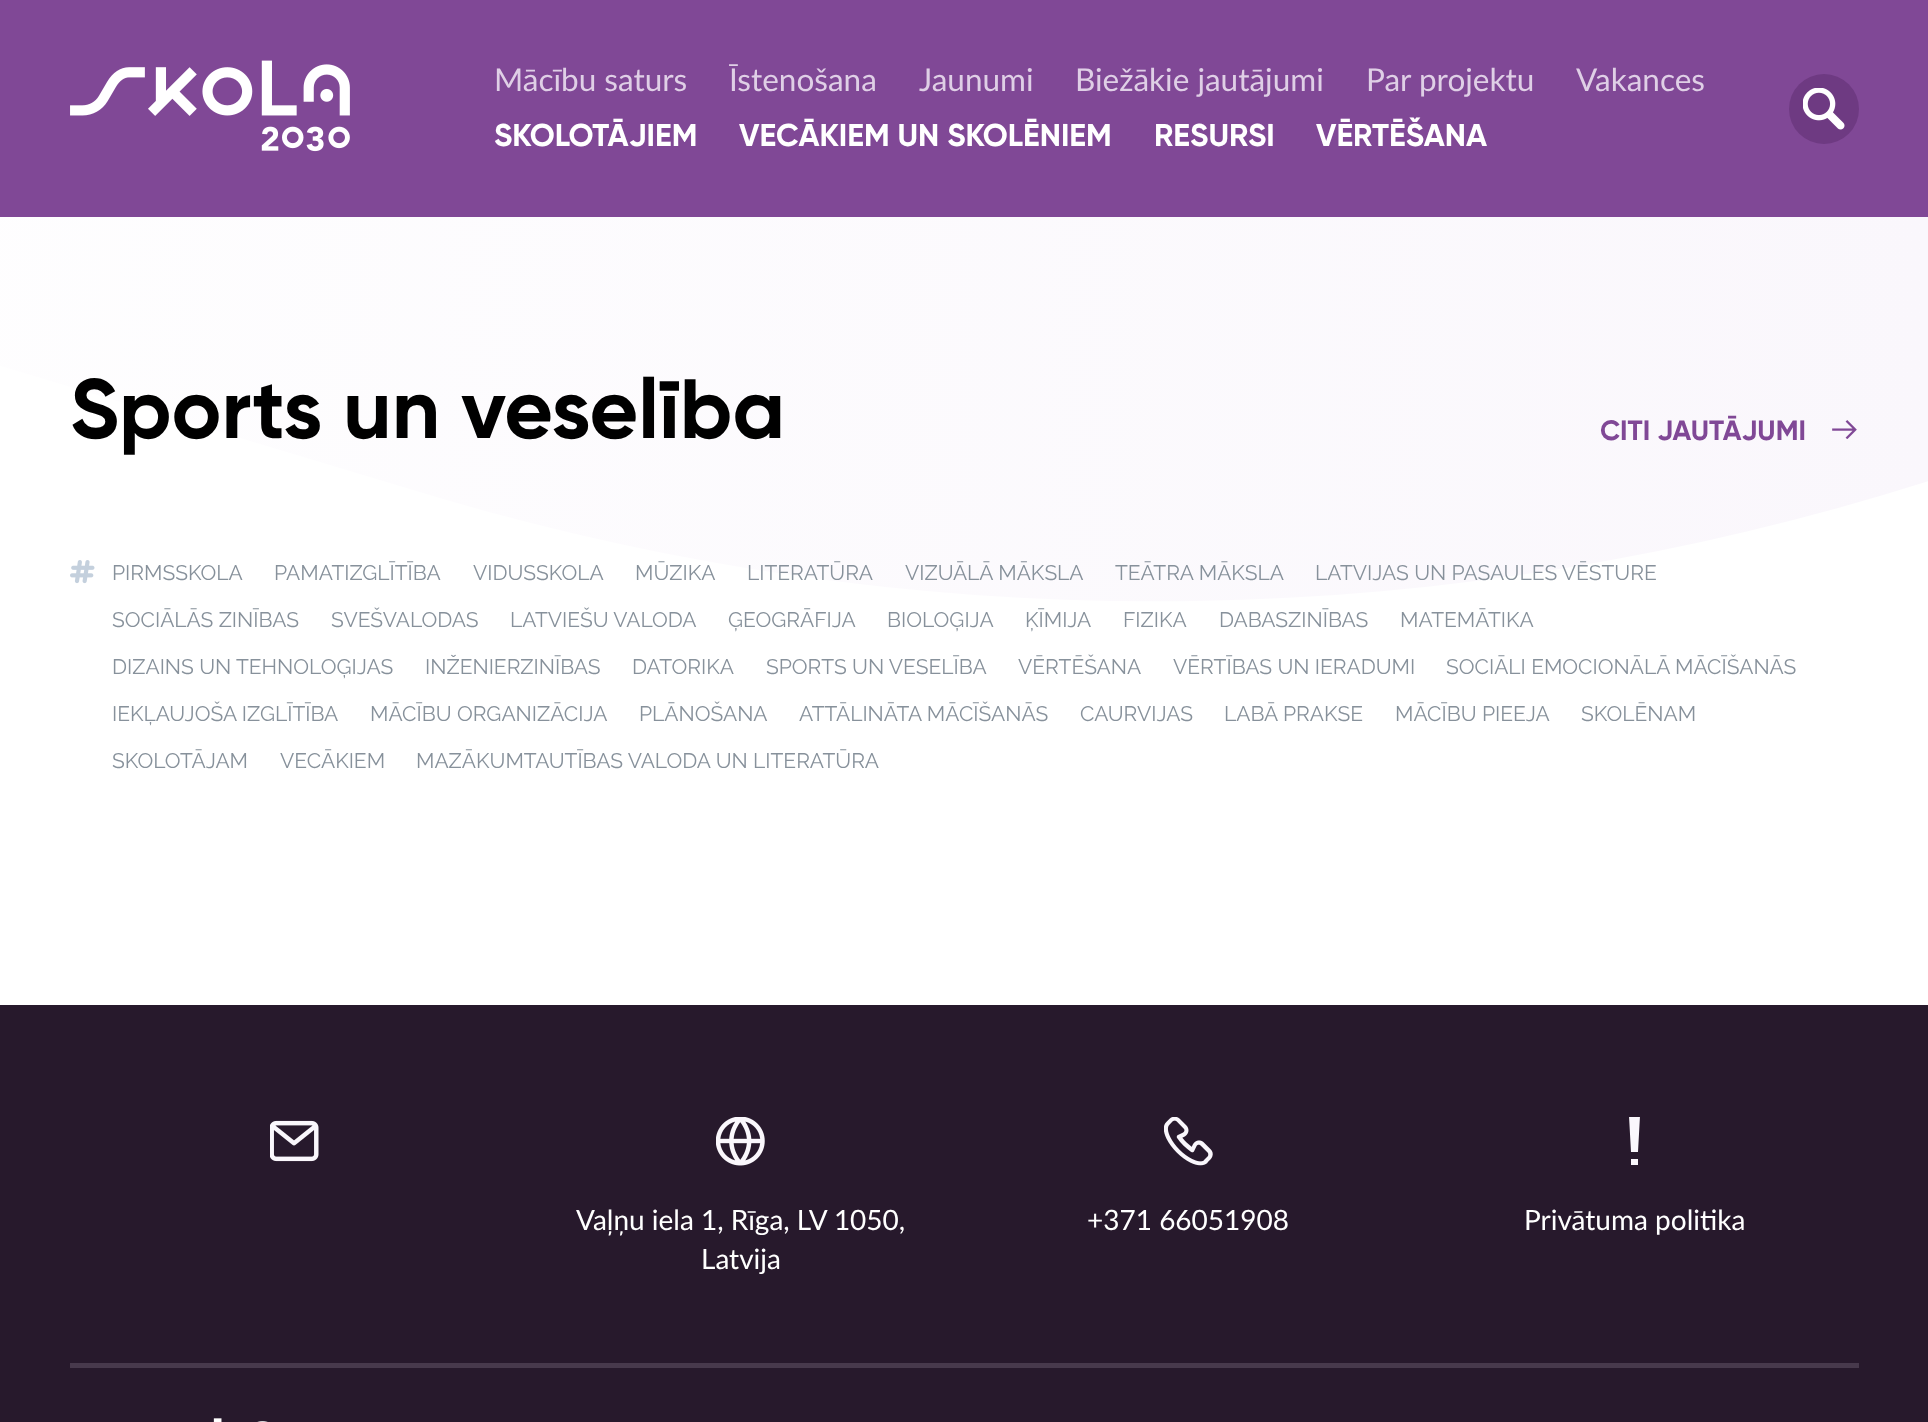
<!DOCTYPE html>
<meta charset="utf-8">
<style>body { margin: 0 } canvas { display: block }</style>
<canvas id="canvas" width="1928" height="1422"></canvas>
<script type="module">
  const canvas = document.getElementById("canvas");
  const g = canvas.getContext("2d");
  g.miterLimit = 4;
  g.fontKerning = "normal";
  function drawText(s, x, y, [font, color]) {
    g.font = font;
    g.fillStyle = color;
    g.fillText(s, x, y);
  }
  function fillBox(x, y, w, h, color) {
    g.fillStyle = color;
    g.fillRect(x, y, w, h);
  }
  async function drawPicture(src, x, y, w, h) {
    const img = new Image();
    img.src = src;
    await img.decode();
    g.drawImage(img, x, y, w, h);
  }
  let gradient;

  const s1 = ["31.5px Lato", "#DFCFE6"];
  const s2 = ["31.5px Gilroy", "#FFFFFF"];
  const s3 = ["84px Gilroy", "#000000"];
  const s4 = ["28px Gilroy", "#804896"];
  const s5 = ["21px Raleway", "#87919B"];
  const s6 = ["28px Lato", "#FFFFFF"];

  fillBox(0, 0, 1928, 1422, "#FFFFFF");
  fillBox(0, 0, 1928, 217, "#804896");
  await drawPicture("pic1.png", 70, 60, 280, 92);
  drawText("Mācību saturs", 494, 91, s1);
  drawText("Īstenošana", 729, 91, s1);
  drawText("Jaunumi", 919, 91, s1);
  drawText("Biežākie jautājumi", 1075, 91, s1);
  drawText("Par projektu", 1366, 91, s1);
  drawText("Vakances", 1576, 91, s1);
  drawText("SKOLOTĀJIEM", 494, 146, s2);
  drawText("VECĀKIEM UN SKOLĒNIEM", 739, 146, s2);
  drawText("RESURSI", 1154, 146, s2);
  drawText("VĒRTĒŠANA", 1316, 146, s2);
  g.fillStyle = "#6E3A82";
  g.beginPath();
  g.arc(1824, 109, 35, 0, Math.PI * 2);
  g.fill();
  await drawPicture("pic2.png", 1803, 88, 42, 42);
  gradient = g.createLinearGradient(-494, 409, 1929, 409);
  gradient.addColorStop(0, "#FFFFFF");
  gradient.addColorStop(1, "#FAF7FC");
  g.fillStyle = gradient;
  g.beginPath();
  g.moveTo(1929, 481);
  g.bezierCurveTo(1690, 557, 1444, 597, 1196, 601);
  g.bezierCurveTo(939, 605, 690, 571, 443, 499);
  g.lineTo(-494, 217);
  g.lineTo(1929, 217);
  g.closePath();
  g.fill("evenodd");
  drawText("Sports un veselība", 70, 438, s3);
  drawText("CITI JAUTĀJUMI", 1600, 440, s4);
  await drawPicture("pic3.png", 1832, 420, 25, 19);
  await drawPicture("pic4.png", 70, 560, 25, 24);
  drawText("PIRMSSKOLA", 112, 580, s5);
  drawText("PAMATIZGLĪTĪBA", 274, 580, s5);
  drawText("VIDUSSKOLA", 473, 580, s5);
  drawText("MŪZIKA", 635, 580, s5);
  drawText("LITERATŪRA", 747, 580, s5);
  drawText("VIZUĀLĀ MĀKSLA", 905, 580, s5);
  drawText("TEĀTRA MĀKSLA", 1115, 580, s5);
  drawText("LATVIJAS UN PASAULES VĒSTURE", 1315, 580, s5);
  drawText("SOCIĀLĀS ZINĪBAS", 112, 627, s5);
  drawText("SVEŠVALODAS", 331, 627, s5);
  drawText("LATVIEŠU VALODA", 510, 627, s5);
  drawText("ĢEOGRĀFIJA", 728, 627, s5);
  drawText("BIOLOĢIJA", 887, 627, s5);
  drawText("ĶĪMIJA", 1025, 627, s5);
  drawText("FIZIKA", 1123, 627, s5);
  drawText("DABASZINĪBAS", 1219, 627, s5);
  drawText("MATEMĀTIKA", 1400, 627, s5);
  drawText("DIZAINS UN TEHNOLOĢIJAS", 112, 674, s5);
  drawText("INŽENIERZINĪBAS", 425, 674, s5);
  drawText("DATORIKA", 632, 674, s5);
  drawText("SPORTS UN VESELĪBA", 766, 674, s5);
  drawText("VĒRTĒŠANA", 1018, 674, s5);
  drawText("VĒRTĪBAS UN IERADUMI", 1173, 674, s5);
  drawText("SOCIĀLI EMOCIONĀLĀ MĀCĪŠANĀS", 1446, 674, s5);
  drawText("IEKĻAUJOŠA IZGLĪTĪBA", 112, 721, s5);
  drawText("MĀCĪBU ORGANIZĀCIJA", 370, 721, s5);
  drawText("PLĀNOŠANA", 639, 721, s5);
  drawText("ATTĀLINĀTA MĀCĪŠANĀS", 799, 721, s5);
  drawText("CAURVIJAS", 1080, 721, s5);
  drawText("LABĀ PRAKSE", 1224, 721, s5);
  drawText("MĀCĪBU PIEEJA", 1395, 721, s5);
  drawText("SKOLĒNAM", 1581, 721, s5);
  drawText("SKOLOTĀJAM", 112, 768, s5);
  drawText("VECĀKIEM", 280, 768, s5);
  drawText("MAZĀKUMTAUTĪBAS VALODA UN LITERATŪRA", 416, 768, s5);
  fillBox(0, 1005, 1928, 417, "#27192C");
  await drawPicture("pic5.png", 270, 1120, 49, 42);
  await drawPicture("pic6.png", 716, 1117, 49, 49);
  drawText("Vaļņu iela 1, Rīga, LV 1050,", 576, 1230, s6);
  drawText("Latvija", 701, 1269, s6);
  await drawPicture("pic7.png", 1164, 1117, 49, 49);
  drawText("+371 66051908", 1087, 1230, s6);
  g.save();
  g.beginPath();
  g.rect(1610, 1117, 49, 49);
  g.clip();
  g.fillStyle = "#FAF7FC";
  g.beginPath();
  g.moveTo(1629, 1116);
  g.lineTo(1631, 1152);
  g.lineTo(1638, 1152);
  g.lineTo(1640, 1116);
  g.closePath();
  g.moveTo(1631, 1159);
  g.lineTo(1638, 1159);
  g.lineTo(1638, 1165);
  g.lineTo(1631, 1165);
  g.closePath();
  g.fill();
  g.restore();
  drawText("Privātuma politika", 1524, 1230, s6);
  fillBox(70, 1363, 1789, 5, "#47394C");
  await drawPicture("pic8.png", 213, 1418, 55, 4);
</script>
